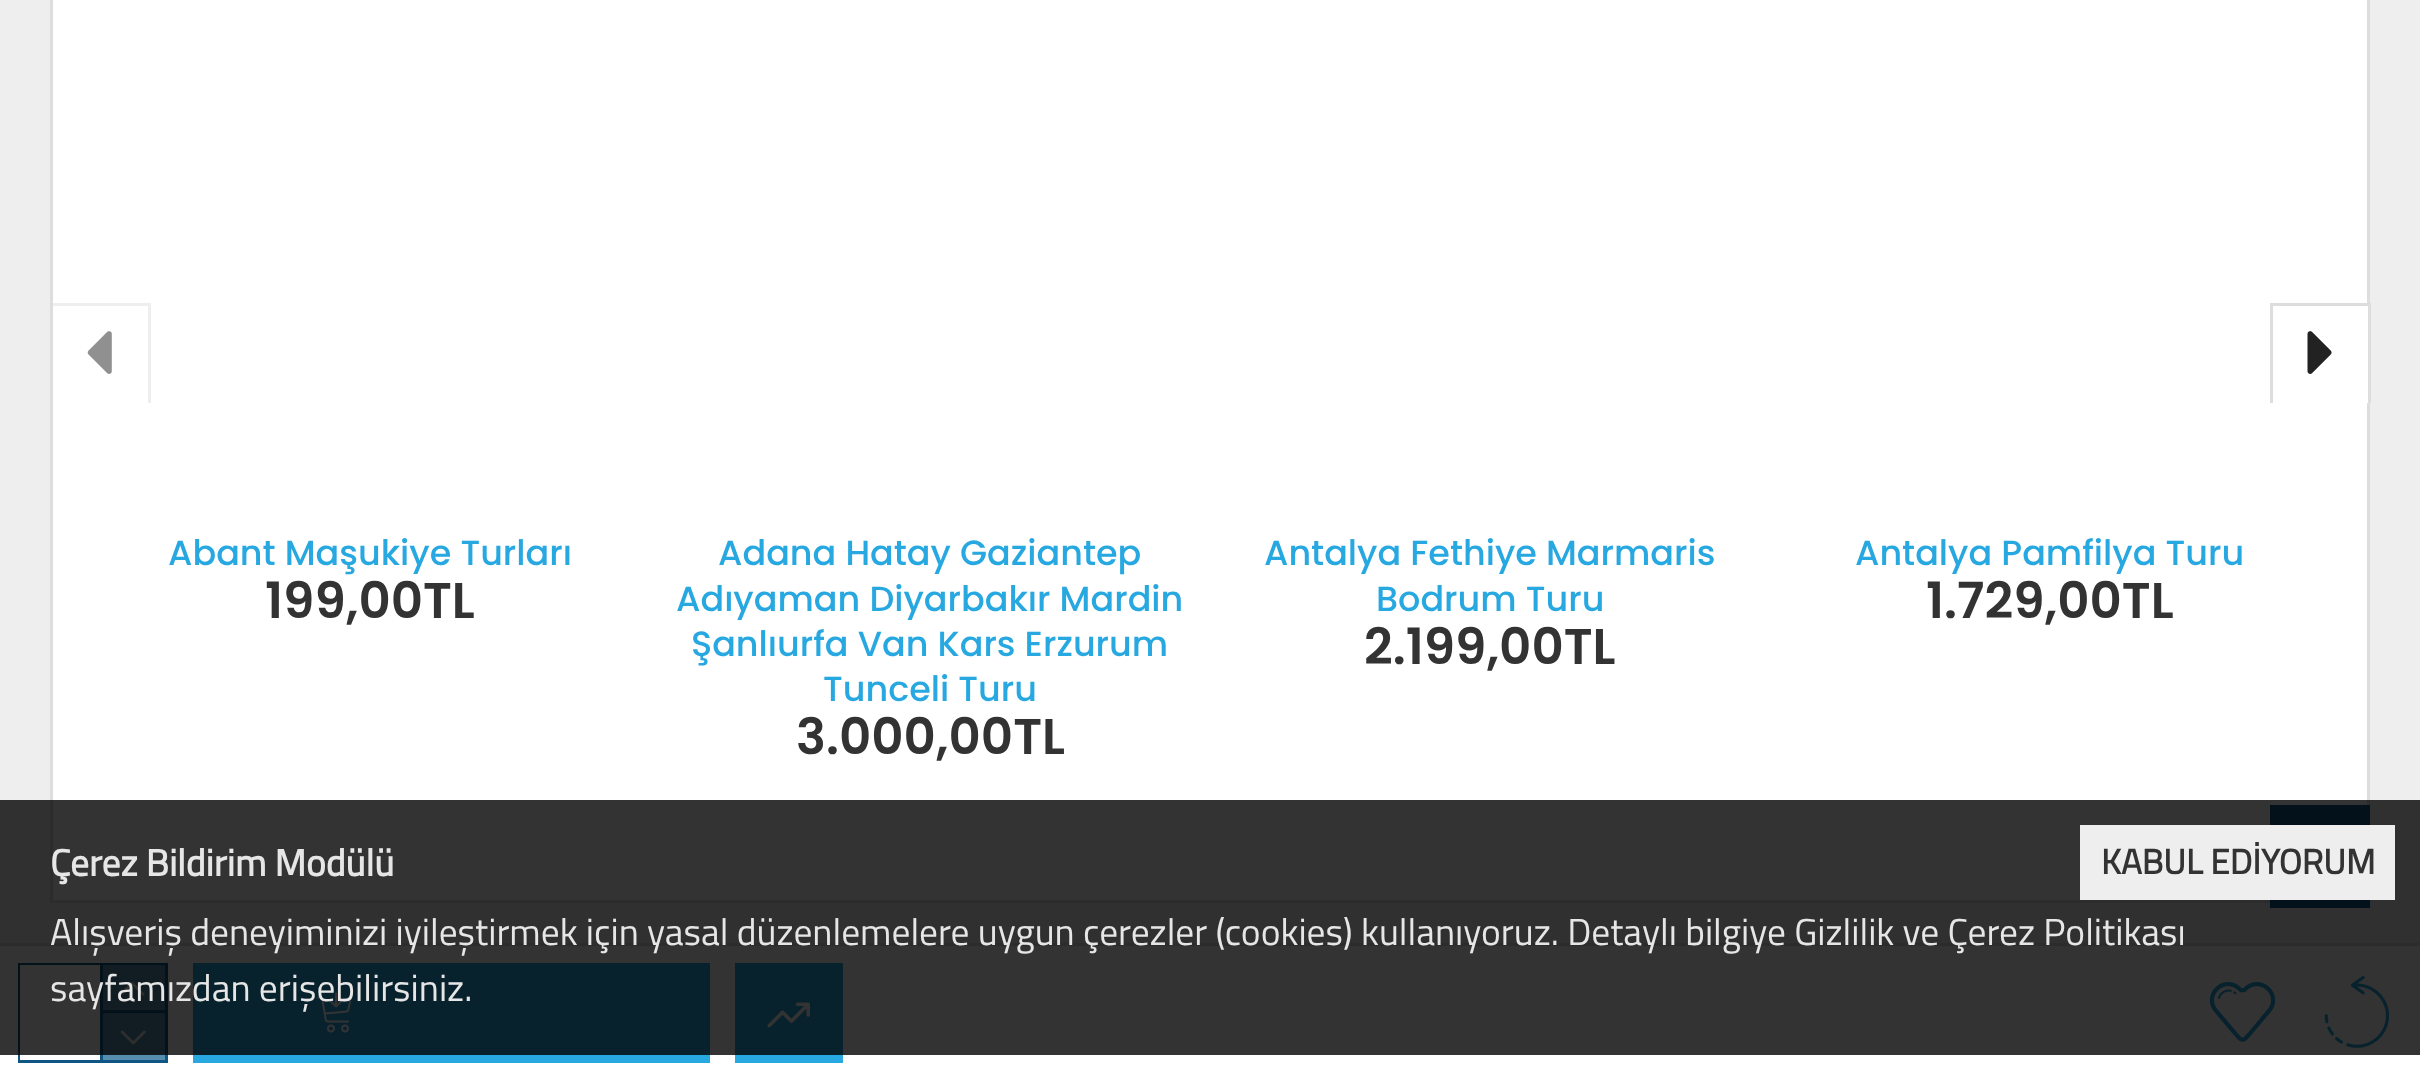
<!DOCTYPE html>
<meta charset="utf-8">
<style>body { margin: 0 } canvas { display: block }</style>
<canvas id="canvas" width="2420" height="1079"></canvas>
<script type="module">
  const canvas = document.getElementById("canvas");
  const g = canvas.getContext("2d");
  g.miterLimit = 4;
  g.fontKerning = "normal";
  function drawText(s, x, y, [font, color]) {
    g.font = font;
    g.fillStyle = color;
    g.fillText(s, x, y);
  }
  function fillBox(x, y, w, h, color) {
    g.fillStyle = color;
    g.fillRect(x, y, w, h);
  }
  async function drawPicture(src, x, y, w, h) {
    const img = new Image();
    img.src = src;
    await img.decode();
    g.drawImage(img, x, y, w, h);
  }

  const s1 = ["500 35px Poppins", "#28A8E0"];
  const s2 = ["600 50px Poppins", "#333333"];
  const s3 = ["bold 37.5px Titillium Web", "#E6E6E6"];
  const s4 = ["37.5px Titillium Web", "#E6E6E6"];
  const s5 = ["bold 35px Titillium Web", "#333333"];

  fillBox(0, 0, 2420, 1079, "#EEEEEE");
  g.fillStyle = "#FFFFFF";
  g.beginPath();
  g.rect(51.5, -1.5, 2317, 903);
  g.fill();
  g.strokeStyle = "#DDDDDD";
  g.lineWidth = 3;
  g.stroke();
  fillBox(50, 303, 100, 3, "rgba(221, 221, 221, 0.5)");
  fillBox(148, 303, 3, 100, "#EEEEEE");
  await drawPicture("pic1.png", 87, 331, 25, 43);
  fillBox(2367, 306, 1, 97, "#FFFFFF");
  fillBox(2270, 303, 100, 3, "#DDDDDD");
  fillBox(2370, 303, 1, 100, "#DDDDDD");
  fillBox(2270, 303, 3, 100, "#DDDDDD");
  await drawPicture("pic2.png", 2307, 331, 25, 43);
  drawText("Abant Maşukiye Turları", 168, 565, s1);
  drawText("199,00TL", 265, 618, s2);
  drawText("Adana Hatay Gaziantep", 718, 565, s1);
  drawText("Adıyaman Diyarbakır Mardin", 676, 611, s1);
  drawText("Şanlıurfa Van Kars Erzurum", 691, 656, s1);
  drawText("Tunceli Turu", 823, 701, s1);
  drawText("3.000,00TL", 796, 754, s2);
  drawText("Antalya Fethiye Marmaris", 1264, 565, s1);
  drawText("Bodrum Turu", 1376, 611, s1);
  drawText("2.199,00TL", 1364, 664, s2);
  drawText("Antalya Pamfilya Turu", 1855, 565, s1);
  drawText("1.729,00TL", 1926, 618, s2);
  fillBox(0, 946, 2420, 133, "#FFFFFF");
  fillBox(0, 943, 2420, 3, "#DDDDDD");
  g.strokeStyle = "#0F5684";
  g.strokeRect(19.5, 964.5, 147, 97);
  fillBox(20, 965, 80, 95, "#FFFFFF");
  fillBox(100, 965, 3, 95, "#0F5684");
  fillBox(103, 965, 62, 45, "#568EAF");
  fillBox(103, 1010, 62, 3, "#0F5684");
  await drawPicture("pic3.png", 119, 981, 26, 15);
  fillBox(103, 1013, 62, 47, "#568EAF");
  await drawPicture("pic4.png", 120, 1030, 26, 15);
  fillBox(193, 963, 517, 100, "#28A8E0");
  await drawPicture("pic5.png", 317, 992, 34, 41);
  fillBox(735, 963, 108, 100, "#28A8E0");
  await drawPicture("pic6.png", 767, 1002, 43, 26);
  await drawPicture("pic7.png", 2209, 982, 67, 60);
  await drawPicture("pic8.png", 2324, 975, 66, 73);
  fillBox(2270, 805, 100, 103, "#0F5684");
  fillBox(0, 800, 2420, 255, "rgba(0, 0, 0, 0.8)");
  drawText("Çerez Bildirim Modülü", 50, 876, s3);
  drawText("Alışveriş deneyiminizi iyileştirmek için yasal düzenlemelere uygun çerezler (cookies) kullanıyoruz. Detaylı bilgiye Gizlilik ve Çerez Politikası", 50, 945, s4);
  drawText("sayfamızdan erişebilirsiniz.", 50, 1001, s4);
  fillBox(2080, 825, 315, 75, "#EEEEEE");
  drawText("KABUL EDİYORUM", 2101, 874, s5);
</script>
